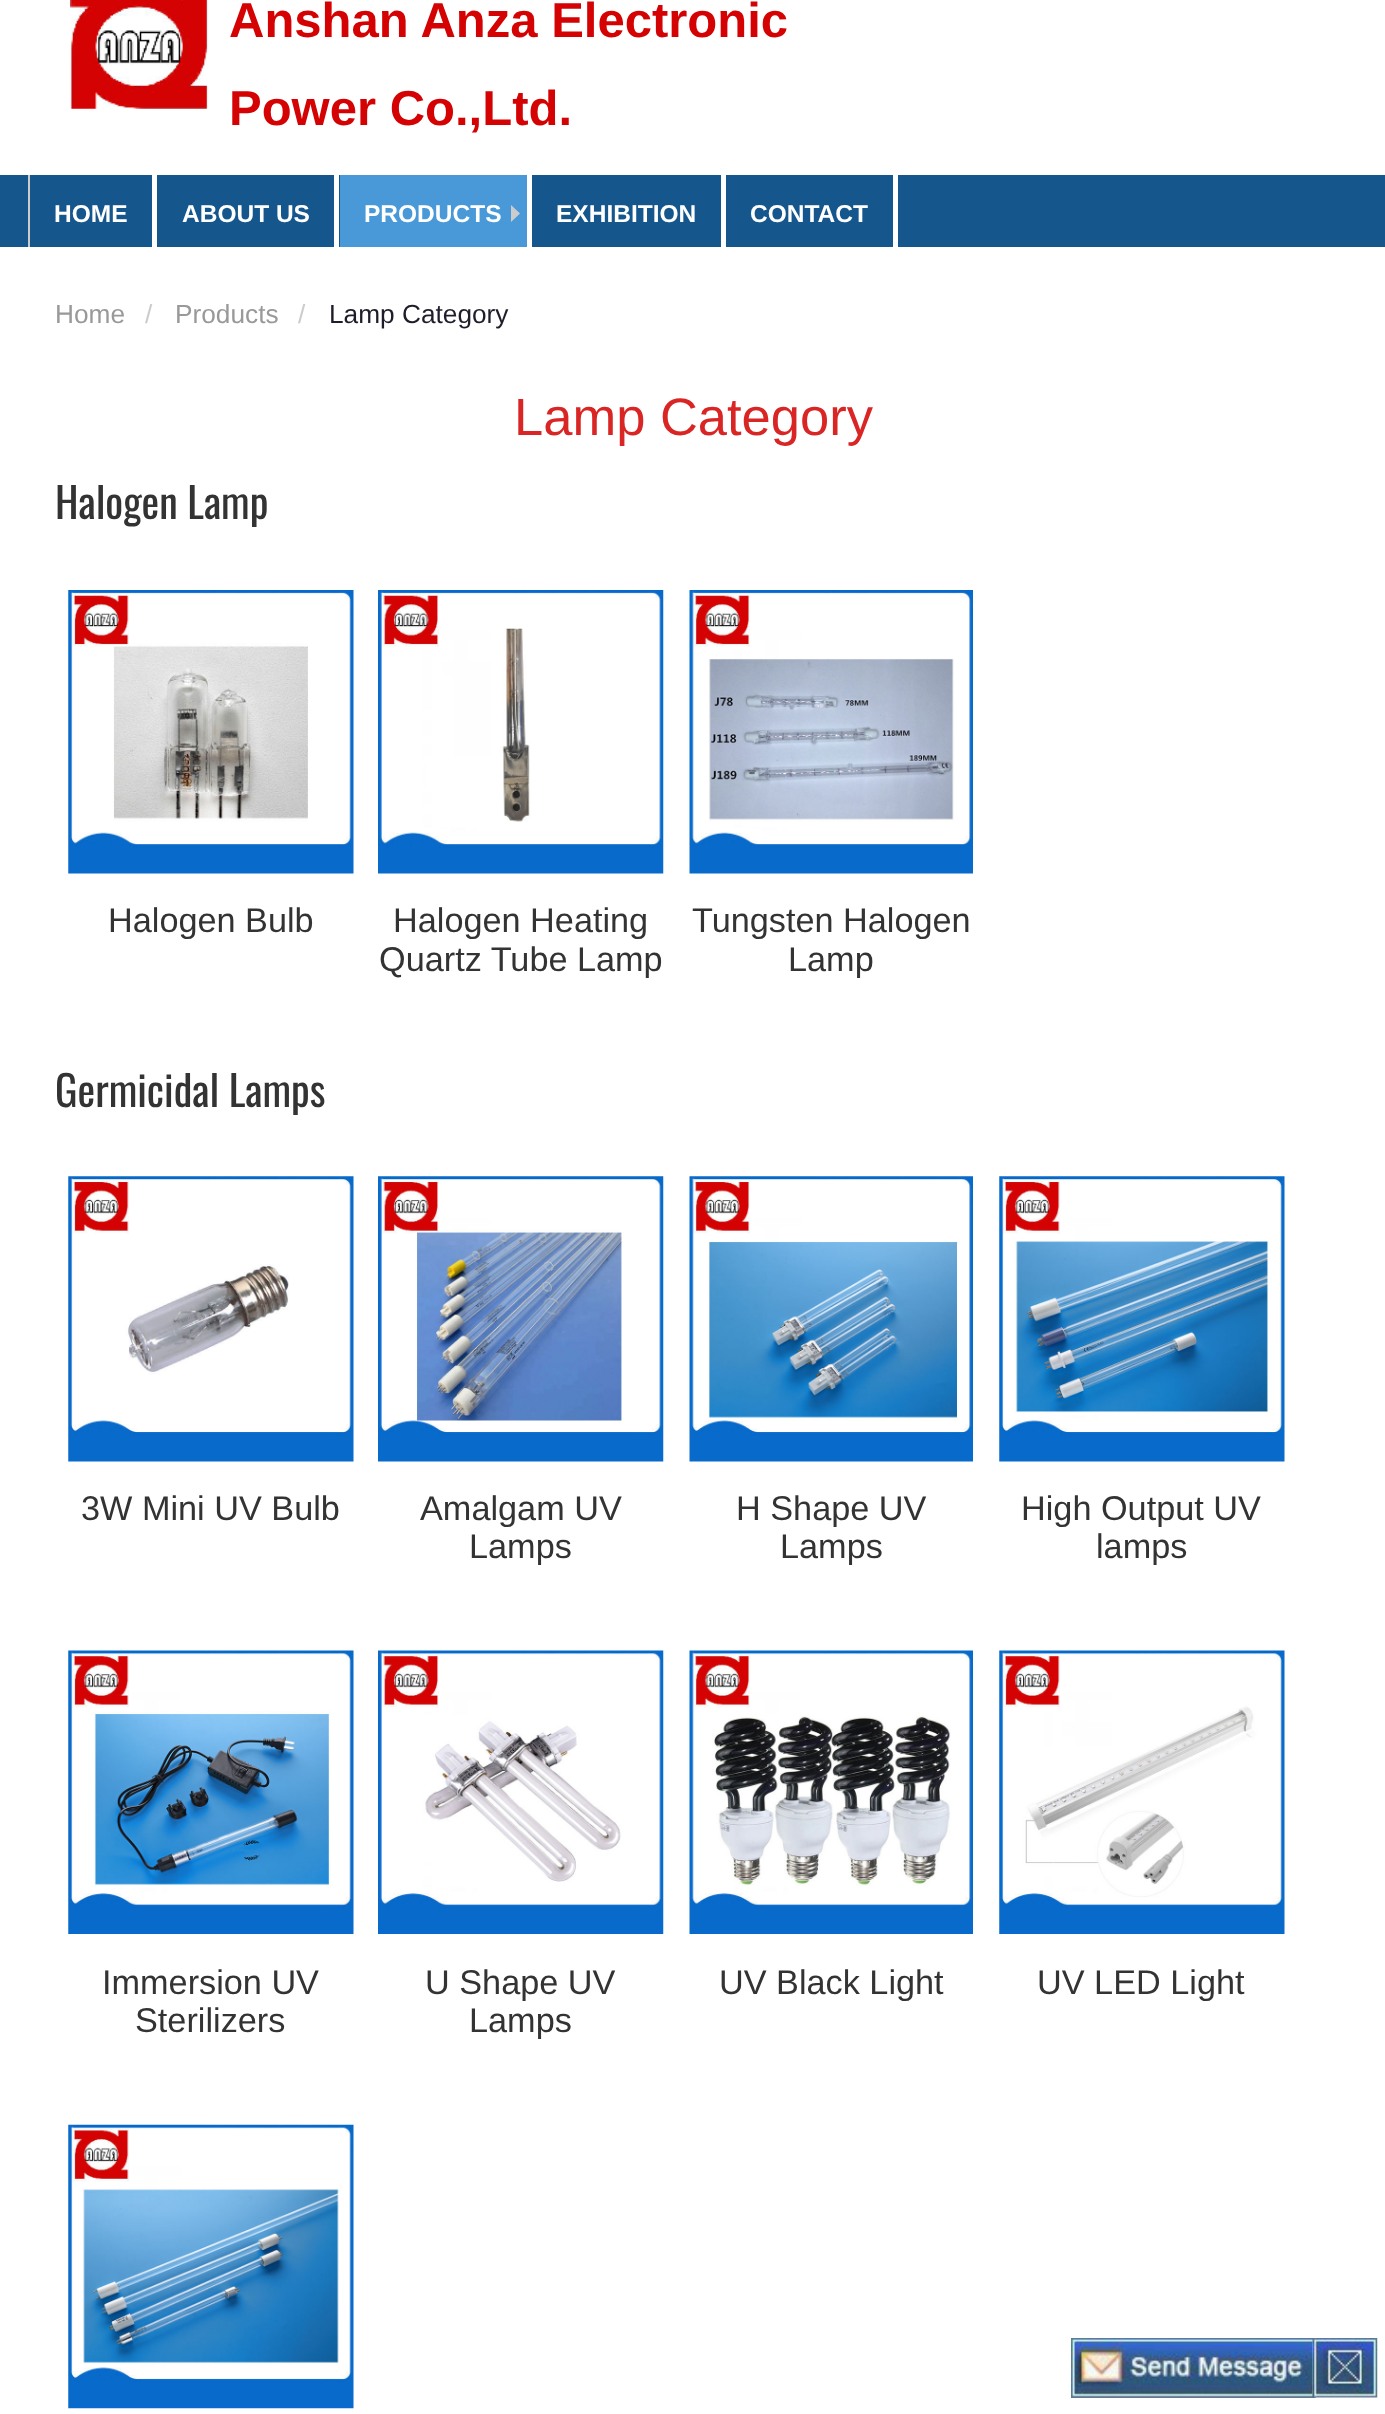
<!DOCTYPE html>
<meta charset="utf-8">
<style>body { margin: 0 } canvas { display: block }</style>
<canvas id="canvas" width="1385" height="2414"></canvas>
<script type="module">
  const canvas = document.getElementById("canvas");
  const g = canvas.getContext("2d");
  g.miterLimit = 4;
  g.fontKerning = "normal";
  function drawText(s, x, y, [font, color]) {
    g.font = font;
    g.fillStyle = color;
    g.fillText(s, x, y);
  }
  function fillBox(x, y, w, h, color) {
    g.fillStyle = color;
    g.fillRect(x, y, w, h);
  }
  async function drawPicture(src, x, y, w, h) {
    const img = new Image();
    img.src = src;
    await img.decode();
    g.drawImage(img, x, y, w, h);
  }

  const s1 = ["bold 49px Liberation Sans", "#D40203"];
  const s2 = ["bold 24.5px Liberation Sans", "#FFFFFF"];
  const s3 = ["26.25px Liberation Sans", "#999999"];
  const s4 = ["26.25px Liberation Sans", "#CCCCCC"];
  const s5 = ["26.25px Liberation Sans", "#1F1D29"];
  const s6 = ["52.5px Liberation Sans", "#DA2525"];
  const s7 = ["42px Oswald", "#333333"];
  const s8 = ["34.25px Liberation Sans", "#333333"];

  fillBox(0, 0, 1385, 2414, "#FFFFFF");
  await drawPicture("pic1.png", 70, 0, 138, 109);
  drawText("Anshan Anza Electronic", 229, 37, s1);
  drawText("Power Co.,Ltd.", 229, 125, s1);
  fillBox(0, 175, 1385, 72, "#15578D");
  fillBox(152, 175, 5, 72, "#FFFFFF");
  fillBox(28, 175, 2, 72, "#CCCCCC");
  drawText("HOME", 54, 222, s2);
  fillBox(334, 175, 5, 72, "#FFFFFF");
  drawText("ABOUT US", 182, 222, s2);
  fillBox(527, 175, 5, 72, "#FFFFFF");
  fillBox(340, 175, 187, 72, "#4999D8");
  drawText("PRODUCTS", 364, 222, s2);
  g.fillStyle = "#CCCCCC";
  g.beginPath();
  g.moveTo(511, 222);
  g.lineTo(511, 205);
  g.lineTo(520, 213.5);
  g.closePath();
  g.fill();
  fillBox(721, 175, 5, 72, "#FFFFFF");
  drawText("EXHIBITION", 556, 222, s2);
  fillBox(893, 175, 5, 72, "#FFFFFF");
  drawText("CONTACT", 750, 222, s2);
  drawText("Home", 55, 323, s3);
  drawText("/", 145, 323, s4);
  drawText("Products", 175, 323, s3);
  drawText("/", 298, 323, s4);
  drawText("Lamp Category", 329, 323, s5);
  drawText("Lamp Category", 514, 435, s6);
  drawText("Halogen Lamp", 55, 519, s7);
  await drawPicture("pic2.png", 68, 590, 286, 284);
  drawText("Halogen Bulb", 108, 932, s8);
  await drawPicture("pic3.png", 378, 590, 286, 284);
  drawText("Halogen Heating", 393, 932, s8);
  drawText("Quartz Tube Lamp", 379, 971, s8);
  await drawPicture("pic4.png", 689, 590, 284, 284);
  drawText("Tungsten Halogen", 692, 932, s8);
  drawText("Lamp", 788, 971, s8);
  drawText("Germicidal Lamps", 55, 1107, s7);
  await drawPicture("pic5.png", 68, 1176, 286, 286);
  drawText("3W Mini UV Bulb", 81, 1520, s8);
  await drawPicture("pic6.png", 378, 1176, 286, 286);
  drawText("Amalgam UV", 420, 1520, s8);
  drawText("Lamps", 469, 1558, s8);
  await drawPicture("pic7.png", 689, 1176, 284, 286);
  drawText("H Shape UV", 736, 1520, s8);
  drawText("Lamps", 780, 1558, s8);
  await drawPicture("pic8.png", 999, 1176, 286, 286);
  drawText("High Output UV", 1021, 1520, s8);
  drawText("lamps", 1096, 1558, s8);
  await drawPicture("pic9.png", 68, 1650, 286, 284);
  drawText("Immersion UV", 102, 1994, s8);
  drawText("Sterilizers", 135, 2032, s8);
  await drawPicture("pic10.png", 378, 1650, 286, 284);
  drawText("U Shape UV", 425, 1994, s8);
  drawText("Lamps", 469, 2032, s8);
  await drawPicture("pic11.png", 689, 1650, 284, 284);
  drawText("UV Black Light", 719, 1994, s8);
  await drawPicture("pic12.png", 999, 1650, 286, 284);
  drawText("UV LED Light", 1037, 1994, s8);
  await drawPicture("pic13.png", 68, 2124, 286, 285);
  await drawPicture("pic14.png", 1071, 2338, 245, 60);
  await drawPicture("pic15.png", 1312, 2338, 66, 60);
</script>
